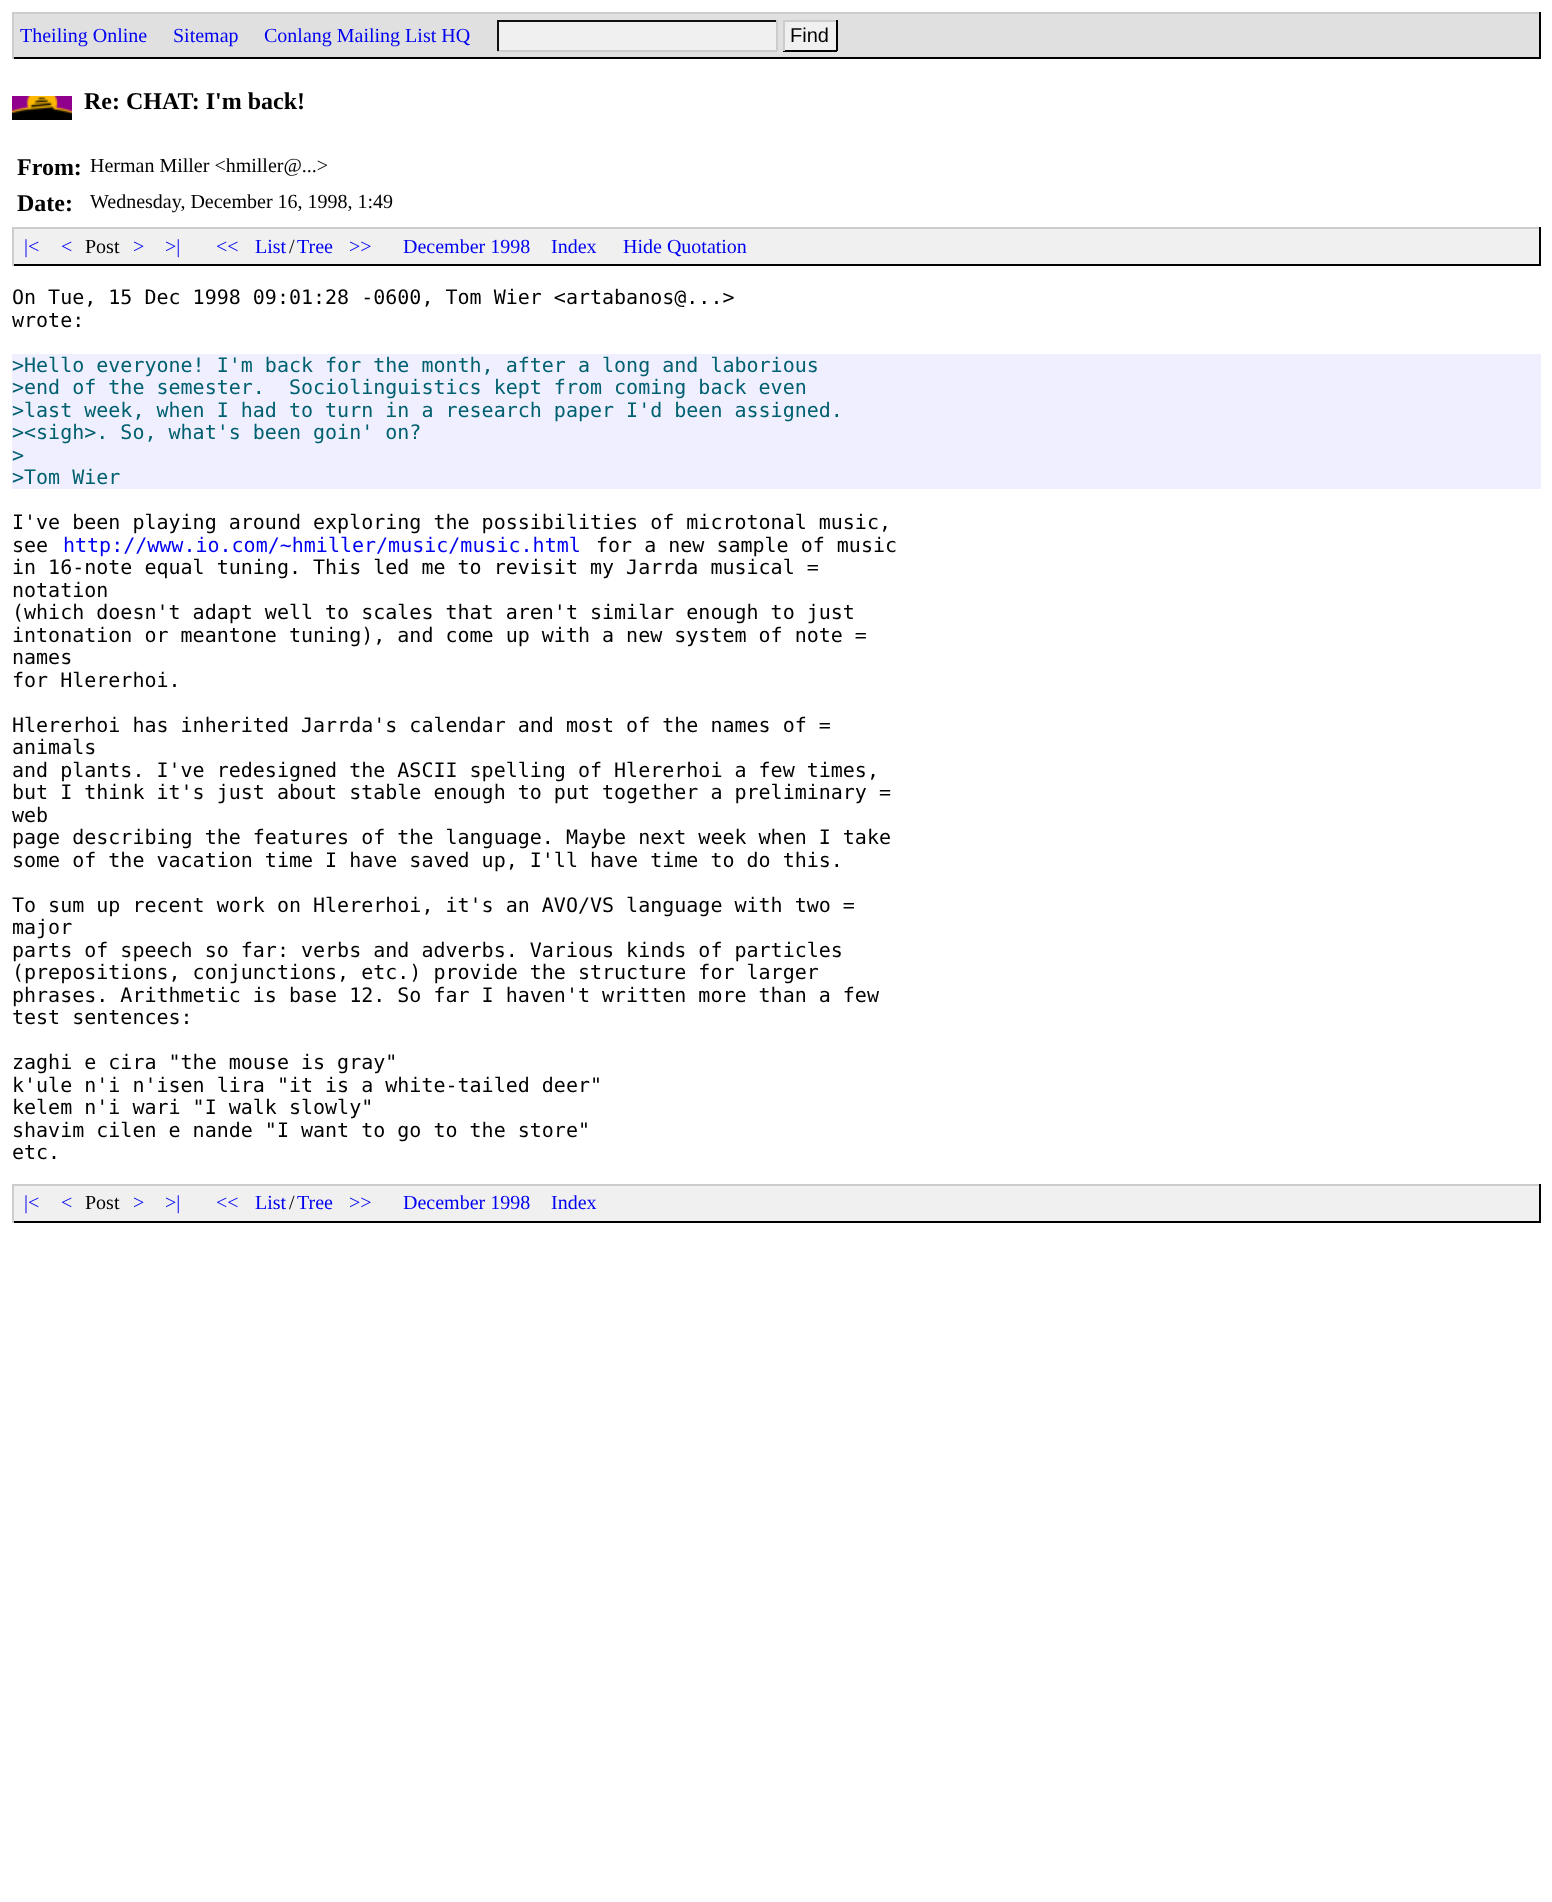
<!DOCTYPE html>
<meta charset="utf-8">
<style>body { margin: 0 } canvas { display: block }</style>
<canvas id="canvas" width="1552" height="1902"></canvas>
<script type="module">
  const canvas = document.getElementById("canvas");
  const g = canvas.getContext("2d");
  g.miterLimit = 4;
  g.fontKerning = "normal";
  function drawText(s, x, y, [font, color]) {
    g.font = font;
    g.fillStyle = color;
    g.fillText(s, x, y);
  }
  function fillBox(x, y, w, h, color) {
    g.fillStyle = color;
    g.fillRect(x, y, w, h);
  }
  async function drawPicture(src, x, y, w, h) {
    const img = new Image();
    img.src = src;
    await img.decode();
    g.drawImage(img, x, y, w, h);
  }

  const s1 = ["20px Liberation Serif", "#0000F0"];
  const s2 = ["20px Liberation Sans", "#000000"];
  const s3 = ["bold 24px Liberation Serif", "#000000"];
  const s4 = ["20px Liberation Serif", "#000000"];
  const s5 = ["20px DejaVu Sans Mono", "#000000"];
  const s6 = ["20px DejaVu Sans Mono", "#006070"];
  const s7 = ["20px DejaVu Sans Mono", "#0000F0"];

  fillBox(0, 0, 1552, 1902, "#FFFFFF");
  fillBox(14, 14, 1525, 43, "#E0E0E0");
  fillBox(12, 12, 1529, 2, "#CCCCCC");
  fillBox(1539, 12, 2, 47, "#000000");
  fillBox(12, 57, 1529, 2, "#000000");
  fillBox(12, 12, 2, 47, "#CCCCCC");
  drawText("Theiling Online", 20, 42, s1);
  drawText("Sitemap", 173, 42, s1);
  drawText("Conlang Mailing List HQ", 264, 42, s1);
  fillBox(499, 22, 277, 28, "#F0F0F0");
  fillBox(497, 20, 280, 2, "#111111");
  fillBox(776, 20, 2, 31, "#CCCCCC");
  fillBox(497, 50, 280, 2, "#CCCCCC");
  fillBox(497, 20, 2, 31, "#111111");
  fillBox(785, 22, 51, 28, "#F0F0F0");
  fillBox(783, 20, 54, 2, "#CCCCCC");
  fillBox(836, 20, 2, 31, "#000000");
  fillBox(783, 50, 54, 2, "#000000");
  fillBox(783, 20, 2, 31, "#CCCCCC");
  drawText("Find", 790, 42, s2);
  await drawPicture("pic1.png", 12, 96, 60, 24);
  drawText("Re: CHAT: I'm back!", 84, 109, s3);
  drawText("From:", 17, 175, s3);
  drawText("Herman Miller <hmiller@...>", 90, 172, s4);
  drawText("Date:", 17, 211, s3);
  drawText("Wednesday, December 16, 1998, 1:49", 90, 208, s4);
  fillBox(14, 229, 1525, 35, "#F0F0F0");
  fillBox(12, 227, 1529, 2, "#CCCCCC");
  fillBox(1539, 227, 2, 39, "#000000");
  fillBox(12, 264, 1529, 2, "#000000");
  fillBox(12, 227, 2, 39, "#CCCCCC");
  drawText("|<", 24, 253, s1);
  drawText("<", 61, 253, s1);
  drawText("Post", 85, 253, s4);
  drawText(">", 133, 253, s1);
  drawText(">|", 165, 253, s1);
  drawText("<<", 216, 253, s1);
  drawText("List", 255, 253, s1);
  drawText("/", 289, 253, s4);
  drawText("Tree", 297, 253, s1);
  drawText(">>", 349, 253, s1);
  drawText("December 1998", 403, 253, s1);
  drawText("Index", 551, 253, s1);
  drawText("Hide Quotation", 623, 253, s1);
  drawText("On Tue, 15 Dec 1998 09:01:28 -0600, Tom Wier <artabanos@...>", 12, 304, s5);
  drawText("wrote:", 12, 327, s5);
  fillBox(12, 354, 1529, 135, "#EFEFFF");
  drawText(">Hello everyone! I'm back for the month, after a long and laborious", 12, 372, s6);
  drawText(">end of the semester.  Sociolinguistics kept from coming back even", 12, 394, s6);
  drawText(">last week, when I had to turn in a research paper I'd been assigned.", 12, 417, s6);
  drawText("><sigh>. So, what's been goin' on?", 12, 439, s6);
  drawText(">", 12, 462, s6);
  drawText(">Tom Wier", 12, 484, s6);
  drawText("I've been playing around exploring the possibilities of microtonal music,", 12, 529, s5);
  drawText("see", 12, 552, s5);
  drawText("http://www.io.com/~hmiller/music/music.html", 63, 552, s7);
  drawText("for a new sample of music", 596, 552, s5);
  drawText("in 16-note equal tuning. This led me to revisit my Jarrda musical =", 12, 574, s5);
  drawText("notation", 12, 597, s5);
  drawText("(which doesn't adapt well to scales that aren't similar enough to just", 12, 619, s5);
  drawText("intonation or meantone tuning), and come up with a new system of note =", 12, 642, s5);
  drawText("names", 12, 664, s5);
  drawText("for Hlererhoi.", 12, 687, s5);
  drawText("Hlererhoi has inherited Jarrda's calendar and most of the names of =", 12, 732, s5);
  drawText("animals", 12, 754, s5);
  drawText("and plants. I've redesigned the ASCII spelling of Hlererhoi a few times,", 12, 777, s5);
  drawText("but I think it's just about stable enough to put together a preliminary =", 12, 799, s5);
  drawText("web", 12, 822, s5);
  drawText("page describing the features of the language. Maybe next week when I take", 12, 844, s5);
  drawText("some of the vacation time I have saved up, I'll have time to do this.", 12, 867, s5);
  drawText("To sum up recent work on Hlererhoi, it's an AVO/VS language with two =", 12, 912, s5);
  drawText("major", 12, 934, s5);
  drawText("parts of speech so far: verbs and adverbs. Various kinds of particles", 12, 957, s5);
  drawText("(prepositions, conjunctions, etc.) provide the structure for larger", 12, 979, s5);
  drawText("phrases. Arithmetic is base 12. So far I haven't written more than a few", 12, 1002, s5);
  drawText("test sentences:", 12, 1024, s5);
  drawText("zaghi e cira \"the mouse is gray\"", 12, 1069, s5);
  drawText("k'ule n'i n'isen lira \"it is a white-tailed deer\"", 12, 1092, s5);
  drawText("kelem n'i wari \"I walk slowly\"", 12, 1114, s5);
  drawText("shavim cilen e nande \"I want to go to the store\"", 12, 1137, s5);
  drawText("etc.", 12, 1159, s5);
  fillBox(14, 1186, 1525, 35, "#F0F0F0");
  fillBox(12, 1184, 1529, 2, "#CCCCCC");
  fillBox(1539, 1184, 2, 39, "#000000");
  fillBox(12, 1221, 1529, 2, "#000000");
  fillBox(12, 1184, 2, 39, "#CCCCCC");
  drawText("|<", 24, 1209, s1);
  drawText("<", 61, 1209, s1);
  drawText("Post", 85, 1209, s4);
  drawText(">", 133, 1209, s1);
  drawText(">|", 165, 1209, s1);
  drawText("<<", 216, 1209, s1);
  drawText("List", 255, 1209, s1);
  drawText("/", 289, 1209, s4);
  drawText("Tree", 297, 1209, s1);
  drawText(">>", 349, 1209, s1);
  drawText("December 1998", 403, 1209, s1);
  drawText("Index", 551, 1209, s1);
</script>
